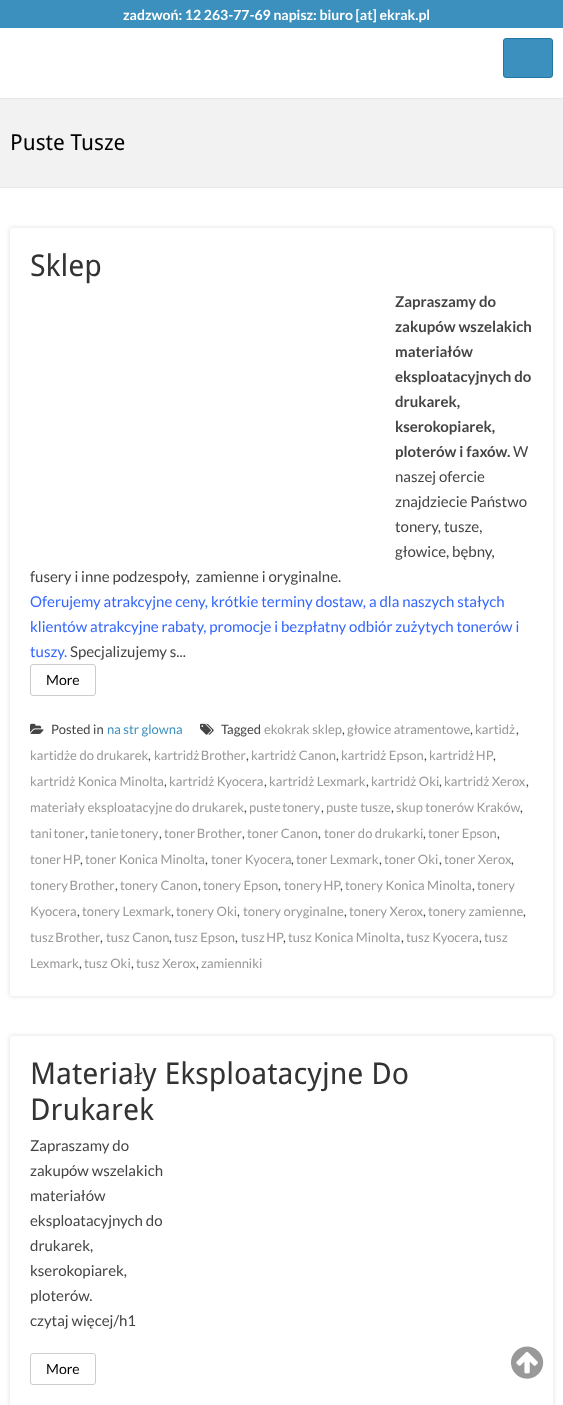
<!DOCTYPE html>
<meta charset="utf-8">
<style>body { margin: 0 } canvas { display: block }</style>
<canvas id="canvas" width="563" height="1405"></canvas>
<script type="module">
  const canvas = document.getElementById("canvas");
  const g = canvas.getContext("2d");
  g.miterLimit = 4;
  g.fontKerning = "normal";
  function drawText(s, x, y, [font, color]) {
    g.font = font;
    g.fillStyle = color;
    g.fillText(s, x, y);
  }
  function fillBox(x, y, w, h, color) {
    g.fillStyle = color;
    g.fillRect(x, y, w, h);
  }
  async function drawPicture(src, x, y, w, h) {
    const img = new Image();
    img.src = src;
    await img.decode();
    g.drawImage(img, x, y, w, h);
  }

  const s1 = ["bold 14px Lato", "#FFFFFF"];
  const s2 = ["22px Droid Sans", "#000000"];
  const s3 = ["30px Droid Sans", "#333333"];
  const s4 = ["bold 15px Lato", "#444444"];
  const s5 = ["15px Lato", "#444444"];
  const s6 = ["15px Lato", "#3366FF"];
  const s7 = ["14px Lato", "#000000"];
  const s8 = ["13px Lato", "#444444"];
  const s9 = ["13px Lato", "#3C90BE"];
  const s10 = ["13px Lato", "#999999"];
  const s11 = ["30px Liberation Serif", "#333333"];

  fillBox(0, 0, 563, 1405, "#FFFFFF");
  fillBox(0, 0, 563, 28, "#3C90BE");
  drawText("zadzwoń: 12 263-77-69 napisz: biuro [at] ekrak.pl", 123, 20, s1);
  g.fillStyle = "#3C90BE";
  g.beginPath();
  g.roundRect(503.5, 38.5, 49, 39, 2.5);
  g.fill();
  g.strokeStyle = "#2477A4";
  g.stroke();
  fillBox(0, 99, 563, 88, "#F2F2F2");
  fillBox(0, 98, 563, 1, "#E7E7E7");
  fillBox(0, 187, 563, 1, "#E7E7E7");
  drawText("Puste Tusze", 10, 150, s2);
  g.save();
  g.beginPath();
  g.moveTo(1, 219);
  g.lineTo(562, 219);
  g.lineTo(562, 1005);
  g.lineTo(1, 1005);
  g.closePath();
  g.moveTo(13, 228);
  g.lineTo(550, 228);
  g.bezierCurveTo(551.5, 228, 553, 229.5, 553, 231);
  g.lineTo(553, 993);
  g.bezierCurveTo(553, 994.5, 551.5, 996, 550, 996);
  g.lineTo(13, 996);
  g.bezierCurveTo(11.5, 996, 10, 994.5, 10, 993);
  g.lineTo(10, 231);
  g.bezierCurveTo(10, 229.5, 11.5, 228, 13, 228);
  g.closePath();
  g.clip("evenodd");
  g.fillStyle = "#DDDDDD";
  g.filter = "blur(2.5px)";
  g.beginPath();
  g.roundRect(10, 228, 543, 768, 3);
  g.fill();
  g.filter = "none";
  g.restore();
  drawText("Sklep", 30, 276, s3);
  drawText("Zapraszamy do", 395, 307, s4);
  drawText("zakupów wszelakich", 395, 332, s4);
  drawText("materiałów", 395, 357, s4);
  drawText("eksploatacyjnych do", 395, 382, s4);
  drawText("drukarek,", 395, 407, s4);
  drawText("kserokopiarek,", 395, 432, s4);
  drawText("ploterów i faxów.", 395, 457, s4);
  drawText("W", 513, 457, s5);
  drawText("naszej ofercie", 395, 482, s5);
  drawText("znajdziecie Państwo", 395, 507, s5);
  drawText("tonery, tusze,", 395, 532, s5);
  drawText("głowice, bębny,", 395, 557, s5);
  drawText("fusery i inne podzespoły,  zamienne i oryginalne.", 30, 582, s5);
  drawText("Oferujemy atrakcyjne ceny, krótkie terminy dostaw, a dla naszych stałych", 30, 607, s6);
  drawText("klientów atrakcyjne rabaty, promocje i bezpłatny odbiór zużytych tonerów i", 30, 632, s6);
  drawText("tuszy.", 30, 657, s6);
  drawText("Specjalizujemy s...", 70, 657, s5);
  g.beginPath();
  g.roundRect(30.5, 664.5, 65, 31, 2.5);
  g.strokeStyle = "#CCCCCC";
  g.stroke();
  drawText("More", 46, 685, s7);
  await drawPicture("pic1.png", 30, 723, 14, 11);
  drawText("Posted in", 51, 734, s8);
  drawText("na str glowna", 107, 734, s9);
  await drawPicture("pic2.png", 200, 723, 14, 12);
  drawText("Tagged", 221, 734, s8);
  drawText("ekokrak sklep", 264, 734, s10);
  drawText(",", 342, 734, s8);
  drawText("głowice atramentowe", 347, 734, s10);
  drawText(",", 470, 734, s8);
  drawText("kartidż", 475, 734, s10);
  drawText(",", 516, 734, s8);
  drawText("kartidże do drukarek", 30, 760, s10);
  drawText(",", 148, 760, s8);
  g.wordSpacing = "-1px";
  drawText("kartridż Brother", 154, 760, s10);
  g.wordSpacing = "0px";
  drawText(",", 246, 760, s8);
  drawText("kartridż Canon", 251, 760, s10);
  drawText(",", 336, 760, s8);
  drawText("kartridż Epson", 341, 760, s10);
  drawText(",", 424, 760, s8);
  g.wordSpacing = "-1px";
  drawText("kartridż HP", 429, 760, s10);
  g.wordSpacing = "0px";
  drawText(",", 493, 760, s8);
  drawText("kartridż Konica Minolta", 30, 786, s10);
  drawText(",", 164, 786, s8);
  drawText("kartridż Kyocera", 169, 786, s10);
  drawText(",", 264, 786, s8);
  drawText("kartridż Lexmark", 269, 786, s10);
  drawText(",", 366, 786, s8);
  drawText("kartridż Oki", 371, 786, s10);
  drawText(",", 439, 786, s8);
  drawText("kartridż Xerox", 444, 786, s10);
  drawText(",", 526, 786, s8);
  drawText("materiały eksploatacyjne do drukarek", 30, 812, s10);
  drawText(",", 244, 812, s8);
  g.wordSpacing = "-1px";
  drawText("puste tonery", 249, 812, s10);
  g.wordSpacing = "0px";
  drawText(",", 321, 812, s8);
  drawText("puste tusze", 326, 812, s10);
  drawText(",", 391, 812, s8);
  drawText("skup tonerów Kraków", 396, 812, s10);
  drawText(",", 520, 812, s8);
  g.wordSpacing = "-1px";
  drawText("tani toner", 30, 838, s10);
  g.wordSpacing = "0px";
  drawText(",", 85, 838, s8);
  g.wordSpacing = "-1px";
  drawText("tanie tonery", 90, 838, s10);
  g.wordSpacing = "0px";
  drawText(",", 159, 838, s8);
  g.wordSpacing = "-1px";
  drawText("toner Brother", 164, 838, s10);
  g.wordSpacing = "0px";
  drawText(",", 242, 838, s8);
  drawText("toner Canon", 247, 838, s10);
  drawText(",", 318, 838, s8);
  drawText("toner do drukarki", 324, 838, s10);
  drawText(",", 423, 838, s8);
  drawText("toner Epson", 428, 838, s10);
  drawText(",", 497, 838, s8);
  g.wordSpacing = "-1px";
  drawText("toner HP", 30, 864, s10);
  g.wordSpacing = "0px";
  drawText(",", 80, 864, s8);
  drawText("toner Konica Minolta", 85, 864, s10);
  drawText(",", 205, 864, s8);
  drawText("toner Kyocera", 211, 864, s10);
  drawText(",", 291, 864, s8);
  drawText("toner Lexmark", 296, 864, s10);
  drawText(",", 379, 864, s8);
  drawText("toner Oki", 384, 864, s10);
  drawText(",", 439, 864, s8);
  drawText("toner Xerox", 444, 864, s10);
  drawText(",", 511, 864, s8);
  g.wordSpacing = "-1px";
  drawText("tonery Brother", 30, 890, s10);
  g.wordSpacing = "0px";
  drawText(",", 115, 890, s8);
  drawText("tonery Canon", 120, 890, s10);
  drawText(",", 198, 890, s8);
  drawText("tonery Epson", 203, 890, s10);
  drawText(",", 278, 890, s8);
  g.wordSpacing = "-1px";
  drawText("tonery HP", 284, 890, s10);
  g.wordSpacing = "0px";
  drawText(",", 340, 890, s8);
  drawText("tonery Konica Minolta", 345, 890, s10);
  drawText(",", 472, 890, s8);
  drawText("tonery", 477, 890, s10);
  drawText("Kyocera", 30, 916, s10);
  drawText(",", 77, 916, s8);
  drawText("tonery Lexmark", 82, 916, s10);
  drawText(",", 171, 916, s8);
  drawText("tonery Oki", 176, 916, s10);
  drawText(",", 237, 916, s8);
  drawText("tonery oryginalne", 243, 916, s10);
  drawText(",", 344, 916, s8);
  drawText("tonery Xerox", 349, 916, s10);
  drawText(",", 423, 916, s8);
  drawText("tonery zamienne", 428, 916, s10);
  drawText(",", 523, 916, s8);
  g.wordSpacing = "-1px";
  drawText("tusz Brother", 30, 942, s10);
  g.wordSpacing = "0px";
  drawText(",", 100, 942, s8);
  drawText("tusz Canon", 106, 942, s10);
  drawText(",", 169, 942, s8);
  drawText("tusz Epson", 174, 942, s10);
  drawText(",", 235, 942, s8);
  g.wordSpacing = "-1px";
  drawText("tusz HP", 241, 942, s10);
  g.wordSpacing = "0px";
  drawText(",", 283, 942, s8);
  drawText("tusz Konica Minolta", 288, 942, s10);
  drawText(",", 401, 942, s8);
  drawText("tusz Kyocera", 406, 942, s10);
  drawText(",", 479, 942, s8);
  drawText("tusz", 484, 942, s10);
  drawText("Lexmark", 30, 968, s10);
  drawText(",", 79, 968, s8);
  drawText("tusz Oki", 84, 968, s10);
  drawText(",", 131, 968, s8);
  drawText("tusz Xerox", 136, 968, s10);
  drawText(",", 196, 968, s8);
  drawText("zamienniki", 201, 968, s10);
  g.save();
  g.beginPath();
  g.moveTo(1, 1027);
  g.lineTo(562, 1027);
  g.lineTo(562, 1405);
  g.lineTo(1, 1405);
  g.closePath();
  g.moveTo(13, 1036);
  g.lineTo(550, 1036);
  g.bezierCurveTo(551.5, 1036, 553, 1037.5, 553, 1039);
  g.lineTo(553, 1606);
  g.bezierCurveTo(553, 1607.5, 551.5, 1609, 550, 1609);
  g.lineTo(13, 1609);
  g.bezierCurveTo(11.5, 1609, 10, 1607.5, 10, 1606);
  g.lineTo(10, 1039);
  g.bezierCurveTo(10, 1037.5, 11.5, 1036, 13, 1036);
  g.closePath();
  g.clip("evenodd");
  g.fillStyle = "#DDDDDD";
  g.filter = "blur(2.5px)";
  g.beginPath();
  g.roundRect(10, 1036, 543, 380, 3);
  g.fill();
  g.filter = "none";
  g.restore();
  drawText("Materia", 30, 1084, s3);
  drawText("ł", 134, 1084, s11);
  drawText("y Eksploatacyjne Do", 142, 1084, s3);
  drawText("Drukarek", 30, 1120, s3);
  drawText("Zapraszamy do", 30, 1151, s5);
  drawText("zakupów wszelakich", 30, 1176, s5);
  drawText("materiałów", 30, 1201, s5);
  drawText("eksploatacyjnych do", 30, 1226, s5);
  drawText("drukarek,", 30, 1251, s5);
  drawText("kserokopiarek,", 30, 1276, s5);
  drawText("ploterów.", 30, 1301, s5);
  drawText("czytaj więcej/h1", 30, 1326, s5);
  g.beginPath();
  g.roundRect(30.5, 1353.5, 65, 31, 2.5);
  g.stroke();
  drawText("More", 46, 1374, s7);
  await drawPicture("pic3.png", 511, 1346, 33, 33);
</script>
